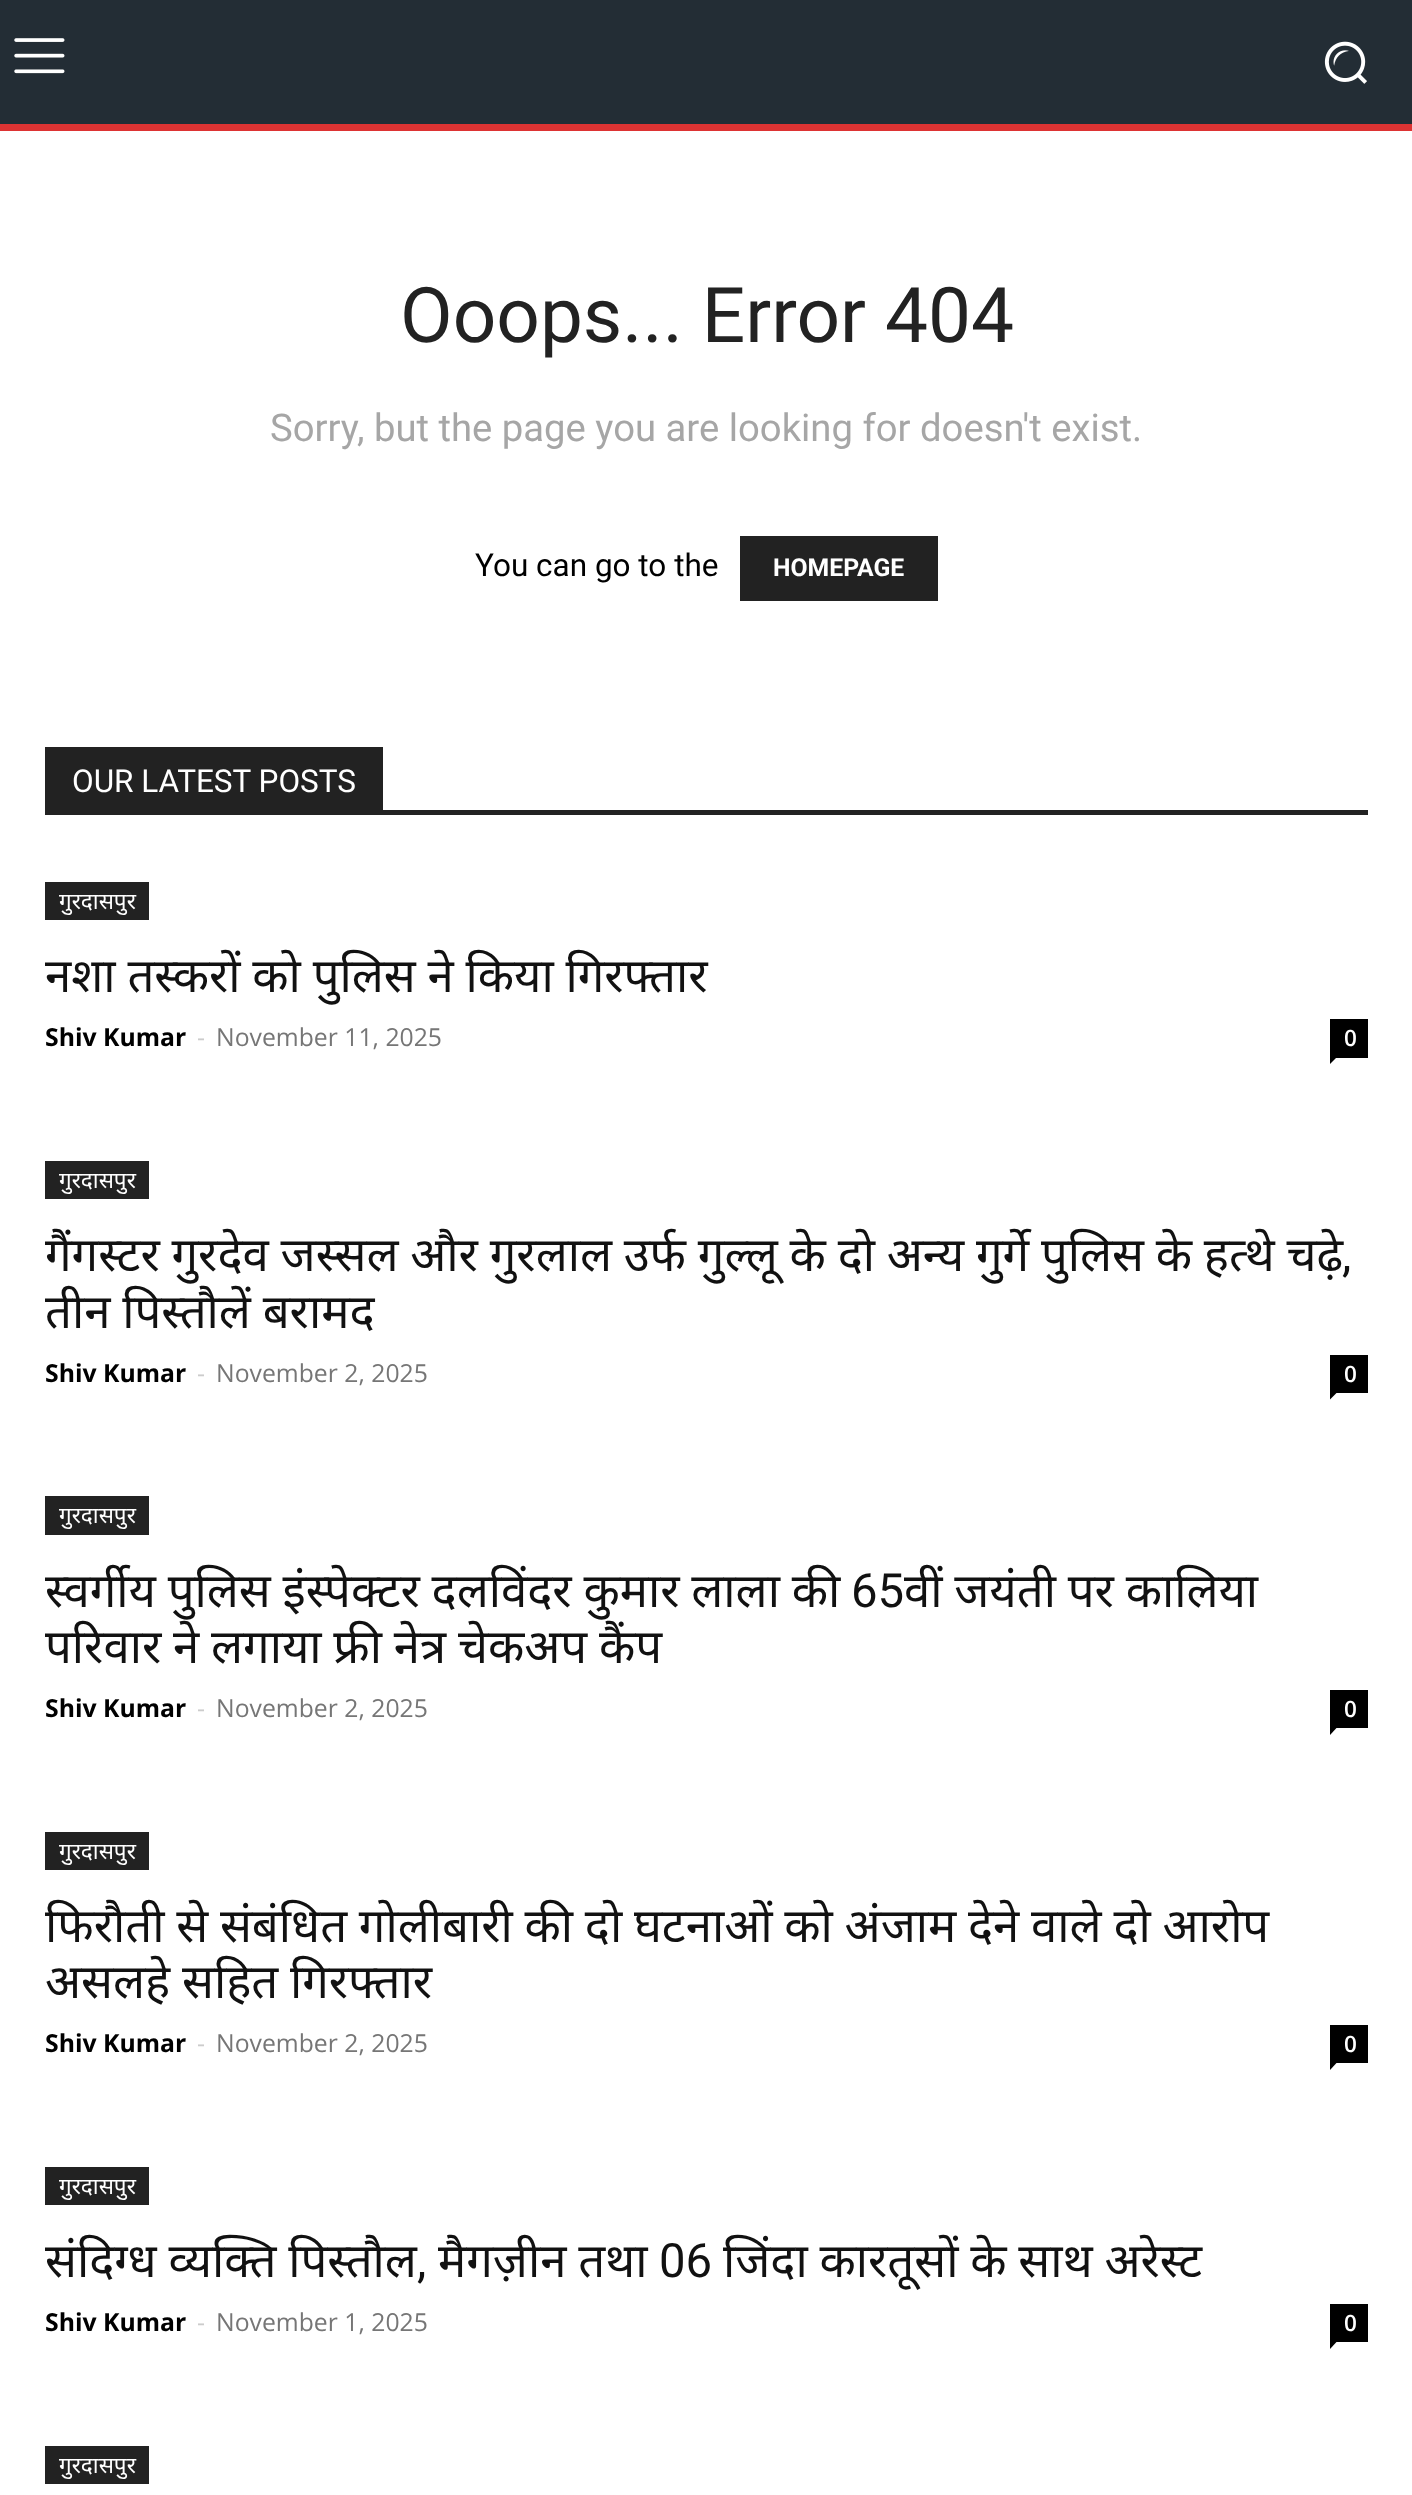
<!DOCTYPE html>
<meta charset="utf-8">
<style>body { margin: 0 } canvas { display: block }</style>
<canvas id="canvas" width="1412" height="2495"></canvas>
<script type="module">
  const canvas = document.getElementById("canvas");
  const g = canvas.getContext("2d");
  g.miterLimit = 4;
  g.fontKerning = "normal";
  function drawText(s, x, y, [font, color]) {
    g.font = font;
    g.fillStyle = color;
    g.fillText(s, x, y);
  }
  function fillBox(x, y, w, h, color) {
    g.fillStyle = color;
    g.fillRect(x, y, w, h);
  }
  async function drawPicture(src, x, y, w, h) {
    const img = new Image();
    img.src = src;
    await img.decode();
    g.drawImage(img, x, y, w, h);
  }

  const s1 = ["76.5px Roboto", "#222222"];
  const s2 = ["38.25px Roboto", "#A6A6A6"];
  const s3 = ["31.5px Roboto", "#000000"];
  const s4 = ["bold 24.75px Roboto", "#FFFFFF"];
  const s5 = ["31.5px Roboto", "#FFFFFF"];
  const s6 = ["22.5px Noto Sans", "#FFFFFF"];
  const s7 = ["47.25px Noto Sans", "#111111"];
  const s8 = ["bold 24.75px Open Sans", "#000000"];
  const s9 = ["24.75px Open Sans", "#CCCCCC"];
  const s10 = ["24.75px Open Sans", "#767676"];
  const s11 = ["600 22.5px Open Sans", "#FFFFFF"];
  const s12 = ["47.25px Roboto", "#111111"];

  fillBox(0, 0, 1412, 2495, "#FFFFFF");
  fillBox(0, 0, 1412, 124, "#232D35");
  await drawPicture("pic1.png", 14, 38, 51, 36);
  await drawPicture("pic2.png", 1324, 41, 43, 43);
  fillBox(0, 124, 1412, 7, "#DD3333");
  drawText("Ooops... Error 404", 400, 342, s1);
  drawText("Sorry, but the page you are looking for doesn't exist.", 270, 441, s2);
  drawText("You can go to the", 475, 576, s3);
  fillBox(740, 536, 198, 65, "#222222");
  drawText("HOMEPAGE", 773, 576, s4);
  fillBox(45, 810, 1323, 5, "#222222");
  fillBox(45, 747, 338, 63, "#222222");
  drawText("OUR LATEST POSTS", 72, 792, s5);
  fillBox(45, 882, 104, 38, "#222222");
  drawText("गुरदासपुर", 59, 909, s6);
  g.wordSpacing = "-0.5px";
  drawText("नशा तस्करों को पुलिस ने किया गिरफ्तार", 45, 992, s7);
  g.wordSpacing = "0px";
  drawText("Shiv Kumar", 45, 1046, s8);
  drawText("-", 197, 1046, s9);
  drawText("November 11, 2025", 216, 1046, s10);
  fillBox(1330, 1019, 38, 39, "#000000");
  drawText("0", 1344, 1046, s11);
  g.fillStyle = "#000000";
  g.beginPath();
  g.moveTo(1330, 1057.5);
  g.lineTo(1336.5, 1057.5);
  g.lineTo(1330, 1064);
  g.closePath();
  g.fill();
  fillBox(45, 1161, 104, 38, "#222222");
  drawText("गुरदासपुर", 59, 1188, s6);
  g.wordSpacing = "-0.5px";
  drawText("गैंगस्टर गुरदेव जस्सल और गुरलाल उर्फ गुल्लू के दो अन्य गुर्गे पुलिस के हत्थे चढ़े", 45, 1271, s7);
  g.wordSpacing = "0px";
  drawText(",", 1342, 1271, s12);
  g.wordSpacing = "-0.5px";
  drawText("तीन पिस्तौलें बरामद", 45, 1328, s7);
  g.wordSpacing = "0px";
  drawText("Shiv Kumar", 45, 1382, s8);
  drawText("-", 197, 1382, s9);
  drawText("November 2, 2025", 216, 1382, s10);
  fillBox(1330, 1355, 38, 38, "#000000");
  drawText("0", 1344, 1382, s11);
  g.fillStyle = "#000000";
  g.beginPath();
  g.moveTo(1330, 1393);
  g.lineTo(1336.5, 1393);
  g.lineTo(1330, 1399.5);
  g.closePath();
  g.fill();
  fillBox(45, 1496, 104, 39, "#222222");
  drawText("गुरदासपुर", 59, 1523, s6);
  g.wordSpacing = "-0.5px";
  drawText("स्वर्गीय पुलिस इंस्पेक्टर दलविंदर कुमार लाला की", 45, 1607, s7);
  g.wordSpacing = "0px";
  drawText("65", 851, 1607, s12);
  g.wordSpacing = "-0.5px";
  drawText("वीं जयंती पर कालिया", 904, 1607, s7);
  drawText("परिवार ने लगाया फ्री नेत्र चेकअप कैंप", 45, 1663, s7);
  g.wordSpacing = "0px";
  drawText("Shiv Kumar", 45, 1717, s8);
  drawText("-", 197, 1717, s9);
  drawText("November 2, 2025", 216, 1717, s10);
  fillBox(1330, 1690, 38, 38, "#000000");
  drawText("0", 1344, 1717, s11);
  g.fillStyle = "#000000";
  g.beginPath();
  g.moveTo(1330, 1728);
  g.lineTo(1336.5, 1728);
  g.lineTo(1330, 1735);
  g.closePath();
  g.fill();
  fillBox(45, 1832, 104, 38, "#222222");
  drawText("गुरदासपुर", 59, 1859, s6);
  g.wordSpacing = "-0.5px";
  drawText("फिरौती से संबंधित गोलीबारी की दो घटनाओं को अंजाम देने वाले दो आरोप", 45, 1942, s7);
  drawText("असलहे सहित गिरफ्तार", 45, 1998, s7);
  g.wordSpacing = "0px";
  drawText("Shiv Kumar", 45, 2052, s8);
  drawText("-", 197, 2052, s9);
  drawText("November 2, 2025", 216, 2052, s10);
  fillBox(1330, 2025, 38, 38, "#000000");
  drawText("0", 1344, 2052, s11);
  g.fillStyle = "#000000";
  g.beginPath();
  g.moveTo(1330, 2063);
  g.lineTo(1336.5, 2063);
  g.lineTo(1330, 2070);
  g.closePath();
  g.fill();
  fillBox(45, 2167, 104, 38, "#222222");
  drawText("गुरदासपुर", 59, 2194, s6);
  g.wordSpacing = "-0.5px";
  drawText("संदिग्ध व्यक्ति पिस्तौल", 45, 2277, s7);
  g.wordSpacing = "0px";
  drawText(",", 417, 2277, s12);
  g.wordSpacing = "-0.5px";
  drawText("मैगज़ीन तथा", 438, 2277, s7);
  g.wordSpacing = "0px";
  drawText("06", 659, 2277, s12);
  g.wordSpacing = "-0.5px";
  drawText("जिंदा कारतूसों के साथ अरेस्ट", 723, 2277, s7);
  g.wordSpacing = "0px";
  drawText("Shiv Kumar", 45, 2331, s8);
  drawText("-", 197, 2331, s9);
  drawText("November 1, 2025", 216, 2331, s10);
  fillBox(1330, 2304, 38, 38, "#000000");
  drawText("0", 1344, 2331, s11);
  g.fillStyle = "#000000";
  g.beginPath();
  g.moveTo(1330, 2342);
  g.lineTo(1336.5, 2342);
  g.lineTo(1330, 2349);
  g.closePath();
  g.fill();
  fillBox(45, 2446, 104, 38, "#222222");
  drawText("गुरदासपुर", 59, 2473, s6);
</script>
